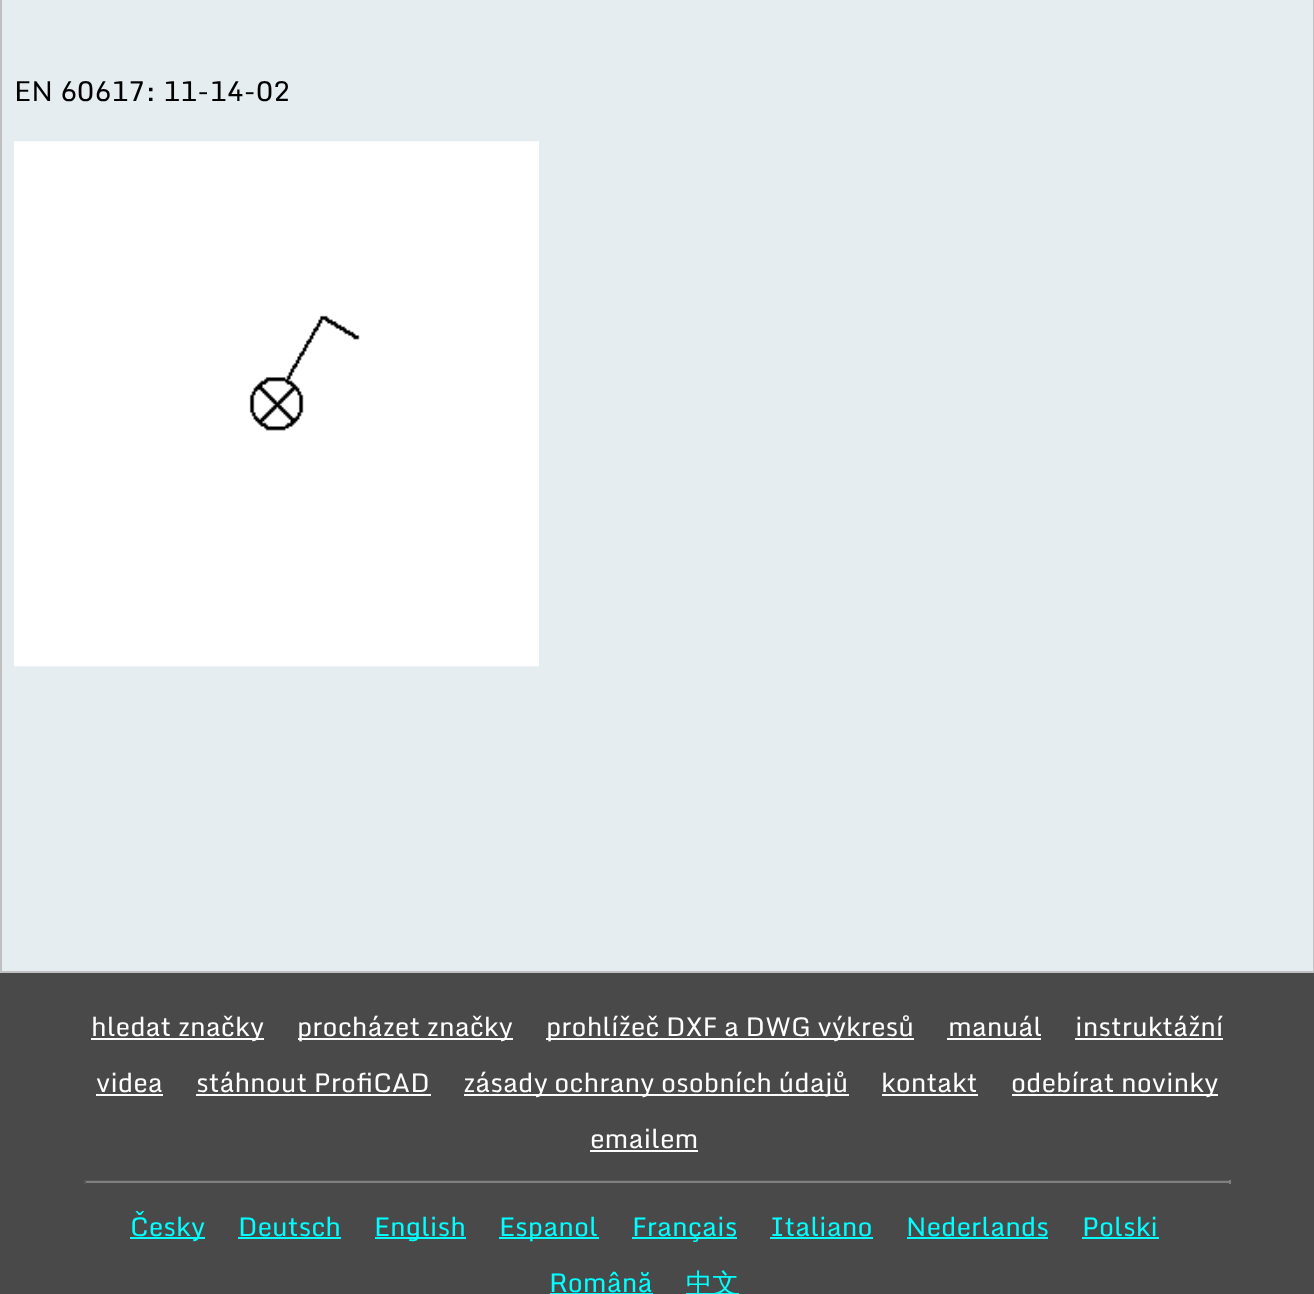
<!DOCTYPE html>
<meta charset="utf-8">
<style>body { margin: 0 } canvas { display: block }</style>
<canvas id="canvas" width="1314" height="1294"></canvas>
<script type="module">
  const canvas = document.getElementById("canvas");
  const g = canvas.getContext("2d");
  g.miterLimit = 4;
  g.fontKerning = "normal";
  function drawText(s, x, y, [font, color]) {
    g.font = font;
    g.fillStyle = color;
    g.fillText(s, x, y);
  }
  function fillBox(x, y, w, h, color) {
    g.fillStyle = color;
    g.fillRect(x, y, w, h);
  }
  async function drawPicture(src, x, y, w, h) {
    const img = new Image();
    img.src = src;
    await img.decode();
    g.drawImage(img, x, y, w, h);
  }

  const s1 = ["28px Monda", "#000000"];
  const s2 = ["26.25px Monda", "#FFFFFF"];
  const s3 = ["26.25px Monda", "#00FFFF"];
  const s4 = ["500 26.25px WenQuanYi Zen Hei", "#00FFFF"];

  fillBox(0, 0, 1314, 1294, "#FFFFFF");
  g.strokeStyle = "#C0C0C0";
  g.lineWidth = 2;
  g.strokeRect(1, -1, 1312, 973);
  fillBox(2, 0, 1311, 971, "#E5EDF0");
  drawText("EN 60617: 11-14-02", 14, 101, s1);
  await drawPicture("pic1.png", 14, 141, 525, 526);
  fillBox(0, 973, 1314, 321, "#494949");
  fillBox(91, 1038, 173, 2, "#FFFFFF");
  drawText("hledat značky", 91, 1036, s2);
  fillBox(298, 1038, 215, 2, "#FFFFFF");
  drawText("procházet značky", 297, 1036, s2);
  fillBox(546, 1038, 368, 2, "#FFFFFF");
  drawText("prohlížeč DXF a DWG výkresů", 546, 1036, s2);
  drawText("manuál", 948, 1036, s2);
  fillBox(947, 1038, 94, 2, "#FFFFFF");
  drawText("instruktážní", 1075, 1036, s2);
  fillBox(1075, 1038, 148, 2, "#FFFFFF");
  drawText("videa", 96, 1092, s2);
  fillBox(96, 1094, 67, 2, "#FFFFFF");
  drawText("stáhnout ProfiCAD", 196, 1092, s2);
  fillBox(196, 1094, 235, 2, "#FFFFFF");
  fillBox(464, 1094, 385, 2, "#FFFFFF");
  drawText("zásady ochrany osobních údajů", 463, 1092, s2);
  drawText("kontakt", 881, 1092, s2);
  fillBox(882, 1094, 96, 2, "#FFFFFF");
  fillBox(1012, 1094, 206, 2, "#FFFFFF");
  drawText("odebírat novinky", 1011, 1092, s2);
  drawText("emailem", 590, 1148, s2);
  fillBox(590, 1150, 108, 2, "#FFFFFF");
  fillBox(84, 1180, 1146, 1, "#555555");
  fillBox(1229, 1180, 2, 4, "#808080");
  fillBox(84, 1181, 1146, 2, "#808080");
  fillBox(84, 1180, 2, 4, "#555555");
  fillBox(130, 1237, 75, 2, "#00FFFF");
  drawText("Česky", 130, 1236, s3);
  drawText("Deutsch", 238, 1236, s3);
  fillBox(238, 1237, 103, 2, "#00FFFF");
  fillBox(375, 1237, 91, 2, "#00FFFF");
  drawText("English", 374, 1236, s3);
  fillBox(499, 1237, 100, 2, "#00FFFF");
  drawText("Espanol", 499, 1236, s3);
  fillBox(632, 1237, 105, 2, "#00FFFF");
  drawText("Français", 632, 1236, s3);
  drawText("Italiano", 770, 1236, s3);
  fillBox(770, 1237, 103, 2, "#00FFFF");
  drawText("Nederlands", 906, 1236, s3);
  fillBox(907, 1237, 141, 2, "#00FFFF");
  drawText("Polski", 1082, 1236, s3);
  fillBox(1082, 1237, 77, 2, "#00FFFF");
  drawText("Română", 549, 1292, s3);
  fillBox(550, 1293, 103, 1, "#00FFFF");
  fillBox(686, 1293, 53, 1, "#00FFFF");
  drawText("中文", 686, 1292, s4);
</script>
